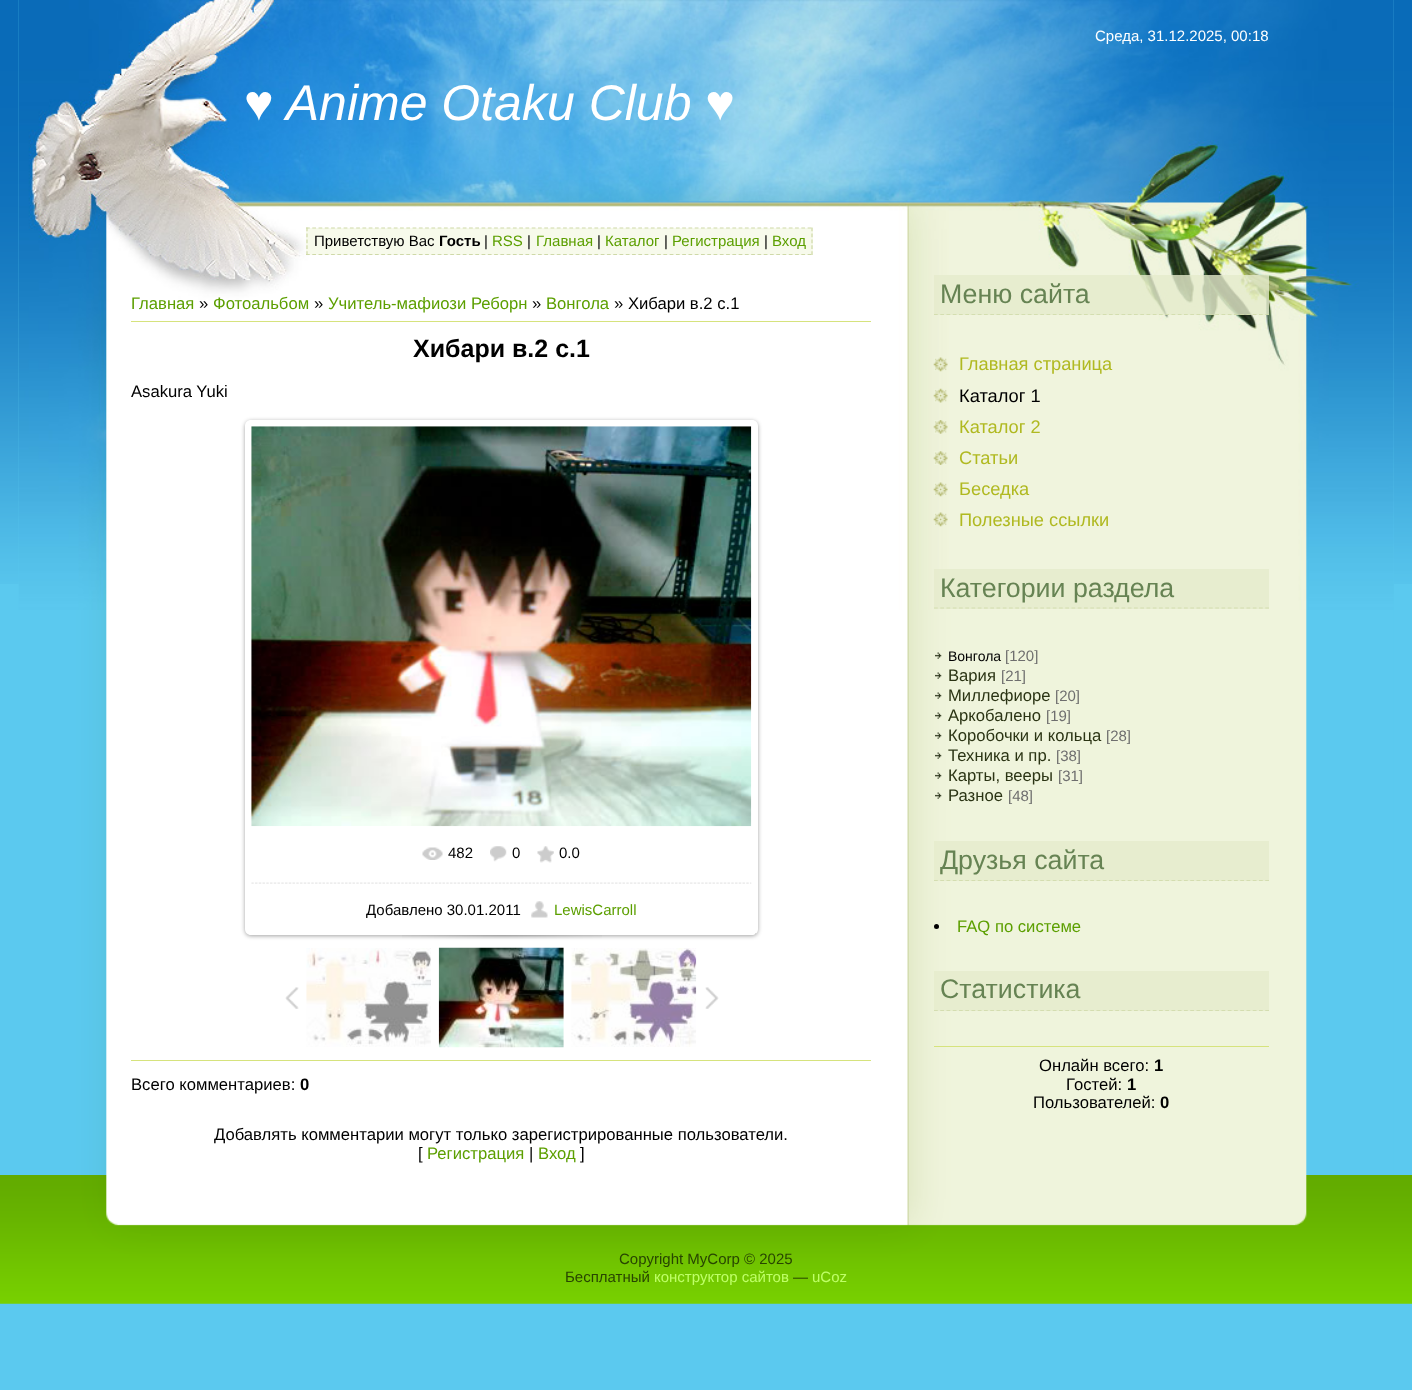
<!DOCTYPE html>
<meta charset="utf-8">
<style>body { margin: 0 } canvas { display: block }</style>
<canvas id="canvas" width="1412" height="1390"></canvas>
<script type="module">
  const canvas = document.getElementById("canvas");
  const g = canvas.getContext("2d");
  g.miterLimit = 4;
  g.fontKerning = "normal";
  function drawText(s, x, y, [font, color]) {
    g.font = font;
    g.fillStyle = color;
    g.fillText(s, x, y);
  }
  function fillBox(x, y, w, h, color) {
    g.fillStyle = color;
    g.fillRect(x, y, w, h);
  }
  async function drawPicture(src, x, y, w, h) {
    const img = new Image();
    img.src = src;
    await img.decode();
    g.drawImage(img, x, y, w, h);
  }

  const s1 = ["15px Liberation Sans", "#FFFFFF"];
  const s2 = ["italic 50px Liberation Sans", "#FFFFFF"];
  const s3 = ["15px Liberation Sans", "#000000"];
  const s4 = ["bold 15px Liberation Sans", "#000000"];
  const s5 = ["15px Liberation Sans", "#5C9F00"];
  const s6 = ["16.65px Liberation Sans", "#5C9F00"];
  const s7 = ["16.65px Liberation Sans", "#000000"];
  const s8 = ["bold 25px Liberation Sans", "#000000"];
  const s9 = ["bold 16.65px Liberation Sans", "#000000"];
  const s10 = ["26.75px Liberation Sans", "#668353"];
  const s11 = ["18.25px Liberation Sans", "#B0B921"];
  const s12 = ["18.25px Liberation Sans", "#000000"];
  const s13 = ["14px Liberation Sans", "#000000"];
  const s14 = ["15px Liberation Sans", "#6E6E6E"];
  const s15 = ["16.65px Liberation Sans", "#2B3414"];
  const s16 = ["15px Liberation Sans", "#284500"];
  const s17 = ["15px Liberation Sans", "#BFFF67"];

  fillBox(0, 0, 1412, 1390, "#5BC9EF");
  await drawPicture("pic1.png", 0, 0, 1412, 584);
  await drawPicture("pic2.png", 18, 0, 1376, 1175);
  await drawPicture("pic3.png", 18, 0, 1376, 610);
  drawText("Среда, 31.12.2025, 00:18", 1095, 41, s1);
  drawText("♥ Anime Otaku Club ♥", 244, 120, s2);
  fillBox(306, 228, 507, 27, "#F7FAEB");
  g.beginPath();
  g.moveTo(306, 228);
  g.lineTo(812.5, 228);
  g.strokeStyle = "#CFD9A8";
  g.lineWidth = 1.2;
  g.setLineDash([3.75, 2.52]);
  g.stroke();
  g.beginPath();
  g.moveTo(812, 227.5);
  g.lineTo(812, 255);
  g.setLineDash([3.75, 2.19]);
  g.stroke();
  g.beginPath();
  g.moveTo(306, 254.5);
  g.lineTo(812.5, 254.5);
  g.setLineDash([3.75, 2.52]);
  g.stroke();
  g.beginPath();
  g.moveTo(307, 227.5);
  g.lineTo(307, 255);
  g.setLineDash([3.75, 2.19]);
  g.stroke();
  drawText("Приветствую Вас", 314, 246, s3);
  drawText("Гость", 439, 246, s4);
  drawText("|", 484, 246, s3);
  drawText("RSS", 492, 246, s5);
  drawText("|", 527, 246, s3);
  drawText("Главная", 536, 246, s5);
  drawText("|", 597, 246, s3);
  drawText("Каталог", 605, 246, s5);
  drawText("|", 664, 246, s3);
  drawText("Регистрация", 672, 246, s5);
  drawText("|", 764, 246, s3);
  drawText("Вход", 772, 246, s5);
  drawText("Главная", 131, 309, s6);
  drawText("»", 199, 309, s7);
  drawText("Фотоальбом", 213, 309, s6);
  drawText("»", 314, 309, s7);
  drawText("Учитель-мафиози Реборн", 328, 309, s6);
  drawText("»", 532, 309, s7);
  drawText("Вонгола", 546, 309, s6);
  drawText("» Хибари в.2 с.1", 614, 309, s7);
  fillBox(131, 321, 740, 1, "#D6E37D");
  drawText("Хибари в.2 с.1", 413, 357, s8);
  drawText("Asakura Yuki", 131, 397, s7);
  g.save();
  g.beginPath();
  g.moveTo(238, 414);
  g.lineTo(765, 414);
  g.lineTo(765, 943);
  g.lineTo(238, 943);
  g.closePath();
  g.moveTo(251, 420);
  g.lineTo(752, 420);
  g.bezierCurveTo(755.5, 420, 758, 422.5, 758, 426);
  g.lineTo(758, 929);
  g.bezierCurveTo(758, 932.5, 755.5, 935, 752, 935);
  g.lineTo(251, 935);
  g.bezierCurveTo(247.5, 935, 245, 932.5, 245, 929);
  g.lineTo(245, 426);
  g.bezierCurveTo(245, 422.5, 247.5, 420, 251, 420);
  g.closePath();
  g.clip("evenodd");
  g.fillStyle = "rgba(0, 0, 0, 0.37)";
  g.filter = "blur(2px)";
  g.beginPath();
  g.roundRect(245, 421, 513, 515, 6);
  g.fill();
  g.filter = "none";
  g.restore();
  fillBox(755, 933, 1, 1, "#DADADA");
  await drawPicture("pic4.png", 251, 426, 501, 401);
  await drawPicture("pic5.png", 422, 847, 21, 13);
  drawText("482", 448, 858, s3);
  await drawPicture("pic6.png", 490, 846, 17, 16);
  drawText("0", 512, 858, s3);
  await drawPicture("pic7.png", 537, 846, 17, 17);
  drawText("0.0", 559, 858, s3);
  await drawPicture("pic8.png", 251, 882, 501, 2);
  drawText("Добавлено 30.01.2011", 366, 915, s3);
  await drawPicture("pic9.png", 531, 901, 17, 17);
  drawText("LewisCarroll", 554, 915, s5);
  await drawPicture("pic10.png", 402, 935, 200, 4);
  await drawPicture("pic11.png", 285, 987, 14, 22);
  await drawPicture("pic12.png", 306, 948, 125, 99);
  await drawPicture("pic13.png", 438, 947, 126, 101);
  await drawPicture("pic14.png", 571, 948, 126, 99);
  await drawPicture("pic15.png", 705, 987, 14, 22);
  fillBox(131, 1060, 740, 1, "#D6E37D");
  drawText("Всего комментариев:", 131, 1090, s7);
  drawText("0", 300, 1090, s9);
  drawText("Добавлять комментарии могут только зарегистрированные пользователи.", 214, 1140, s7);
  drawText("[", 418, 1159, s7);
  drawText("Регистрация", 427, 1159, s6);
  drawText("|", 529, 1159, s7);
  drawText("Вход", 538, 1159, s6);
  drawText("]", 580, 1159, s7);
  fillBox(934, 275, 335, 40, "rgba(229, 235, 204, 0.8)");
  g.beginPath();
  g.moveTo(934, 314.5);
  g.lineTo(1269, 314.5);
  g.strokeStyle = "rgba(207, 217, 168, 0.8)";
  g.setLineDash([3.75, 2.5]);
  g.stroke();
  drawText("Меню сайта", 940, 303, s10);
  await drawPicture("pic16.png", 933, 357, 15, 15);
  drawText("Главная страница", 959, 370, s11);
  await drawPicture("pic17.png", 933, 388, 15, 15);
  drawText("Каталог 1", 959, 402, s12);
  await drawPicture("pic18.png", 933, 420, 15, 14);
  drawText("Каталог 2", 959, 433, s11);
  await drawPicture("pic19.png", 933, 451, 15, 14);
  drawText("Статьи", 959, 464, s11);
  await drawPicture("pic16.png", 933, 482, 15, 15);
  drawText("Беседка", 959, 495, s11);
  await drawPicture("pic20.png", 933, 512, 15, 15);
  drawText("Полезные ссылки", 959, 526, s11);
  fillBox(934, 569, 335, 40, "rgba(229, 235, 204, 0.8)");
  g.beginPath();
  g.moveTo(934, 608);
  g.lineTo(1269, 608);
  g.strokeStyle = "#D4DDB0";
  g.stroke();
  drawText("Категории раздела", 940, 597, s10);
  await drawPicture("pic21.png", 935, 652, 7, 7);
  drawText("Вонгола", 948, 661, s13);
  drawText("[120]", 1005, 661, s14);
  await drawPicture("pic21.png", 935, 672, 7, 7);
  drawText("Вария", 948, 681, s15);
  drawText("[21]", 1001, 681, s14);
  await drawPicture("pic21.png", 935, 692, 7, 7);
  drawText("Миллефиоре", 948, 701, s15);
  drawText("[20]", 1055, 701, s14);
  await drawPicture("pic21.png", 935, 712, 7, 7);
  drawText("Аркобалено", 948, 721, s15);
  drawText("[19]", 1046, 721, s14);
  await drawPicture("pic21.png", 935, 732, 7, 7);
  drawText("Коробочки и кольца", 948, 741, s15);
  drawText("[28]", 1106, 741, s14);
  await drawPicture("pic21.png", 935, 752, 7, 7);
  drawText("Техника и пр.", 948, 761, s15);
  drawText("[38]", 1056, 761, s14);
  await drawPicture("pic21.png", 935, 772, 7, 7);
  drawText("Карты, вееры", 948, 781, s15);
  drawText("[31]", 1058, 781, s14);
  await drawPicture("pic21.png", 935, 792, 7, 7);
  drawText("Разное", 948, 801, s15);
  drawText("[48]", 1008, 801, s14);
  fillBox(934, 841, 335, 40, "rgba(229, 235, 204, 0.8)");
  g.beginPath();
  g.moveTo(934, 880.5);
  g.lineTo(1269, 880.5);
  g.stroke();
  drawText("Друзья сайта", 940, 869, s10);
  g.fillStyle = "#000000";
  g.beginPath();
  g.arc(936.5, 926.5, 2.5, 0, Math.PI * 2);
  g.fill();
  drawText("FAQ по системе", 957, 932, s6);
  fillBox(934, 971, 335, 40, "rgba(229, 235, 204, 0.8)");
  g.beginPath();
  g.moveTo(934, 1010.5);
  g.lineTo(1269, 1010.5);
  g.stroke();
  drawText("Статистика", 940, 998, s10);
  fillBox(934, 1046, 335, 1, "#D6E37D");
  drawText("Онлайн всего:", 1039, 1071, s7);
  drawText("1", 1154, 1071, s9);
  drawText("Гостей:", 1066, 1090, s7);
  drawText("1", 1127, 1090, s9);
  drawText("Пользователей:", 1033, 1108, s7);
  drawText("0", 1160, 1108, s9);
  await drawPicture("pic22.png", 0, 1175, 1412, 129);
  drawText("Copyright MyCorp © 2025", 619, 1264, s16);
  drawText("Бесплатный", 565, 1282, s16);
  drawText("конструктор сайтов", 654, 1282, s17);
  drawText("—", 793, 1282, s16);
  drawText("uCoz", 812, 1282, s17);
</script>
